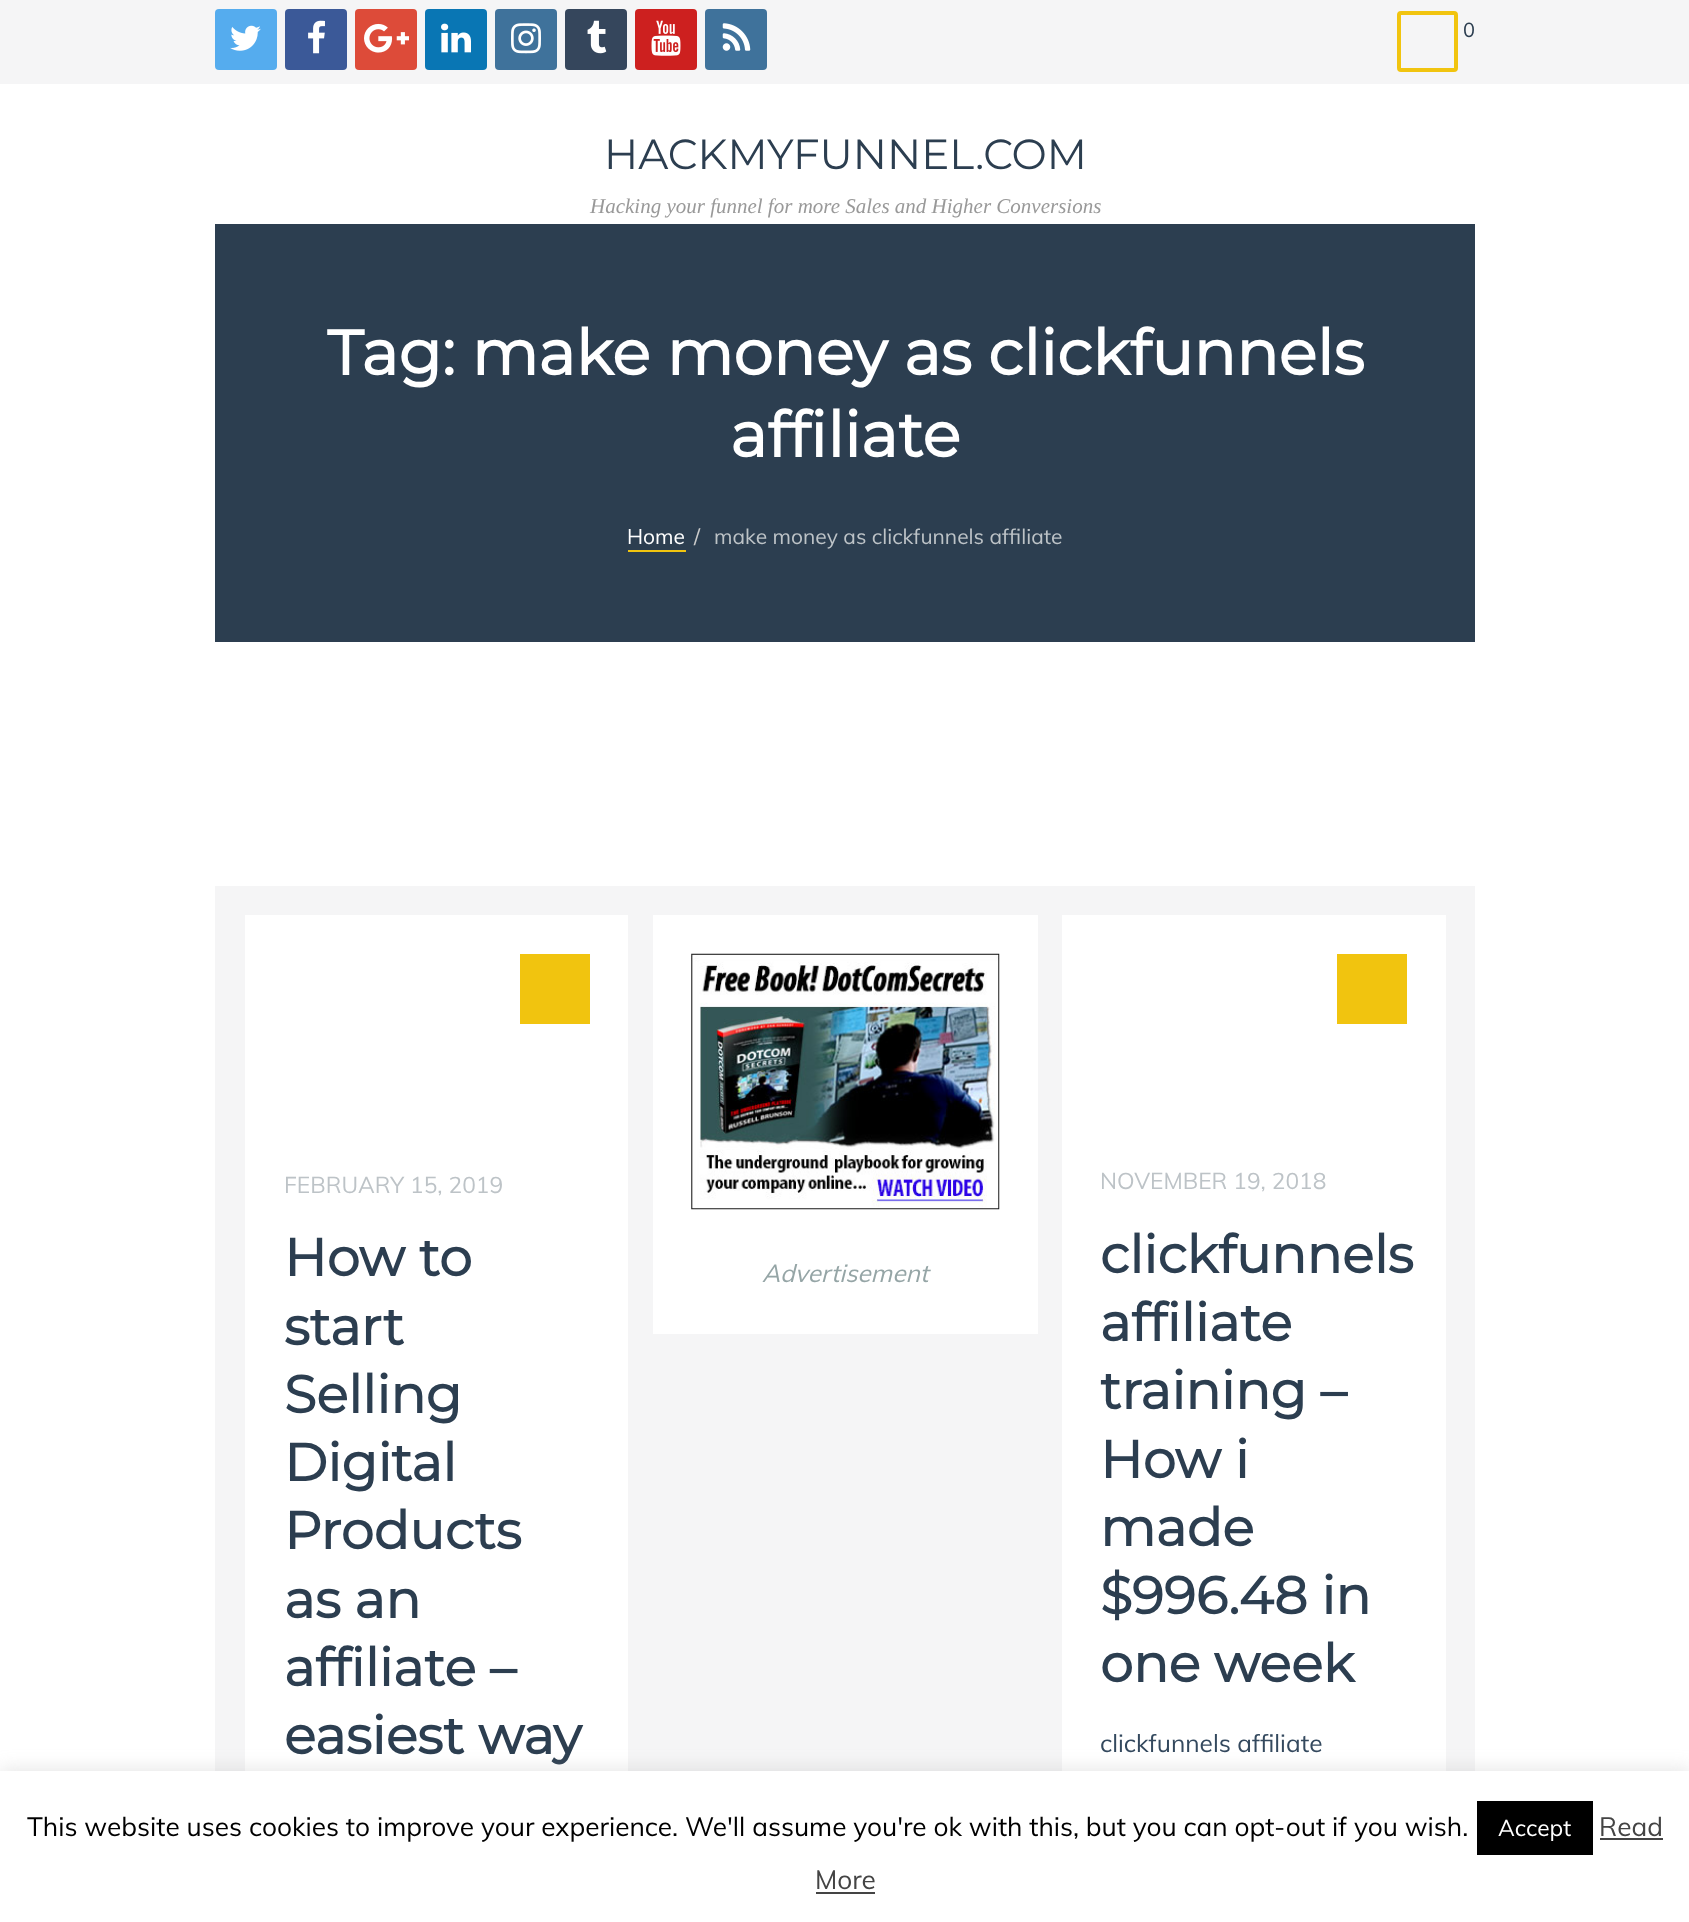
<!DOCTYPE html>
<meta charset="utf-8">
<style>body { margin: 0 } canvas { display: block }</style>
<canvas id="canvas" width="1689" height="1922"></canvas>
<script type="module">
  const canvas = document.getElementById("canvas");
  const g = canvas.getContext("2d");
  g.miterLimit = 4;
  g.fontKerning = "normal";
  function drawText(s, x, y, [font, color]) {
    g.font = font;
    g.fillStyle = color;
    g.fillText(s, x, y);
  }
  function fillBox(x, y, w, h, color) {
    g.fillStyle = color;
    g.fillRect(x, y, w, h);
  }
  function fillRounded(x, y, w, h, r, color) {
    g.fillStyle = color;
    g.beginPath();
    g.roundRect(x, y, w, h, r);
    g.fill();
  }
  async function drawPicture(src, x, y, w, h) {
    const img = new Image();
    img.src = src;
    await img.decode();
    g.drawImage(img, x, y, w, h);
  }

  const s1 = ["20px Muli", "#2C3E50"];
  const s2 = ["100 42px Montserrat", "#2C3E50"];
  const s3 = ["italic 21px Liberation Serif", "#999999"];
  const s4 = ["bold 63px Montserrat", "#FFFFFF"];
  const s5 = ["21px Muli", "#FFFFFF"];
  const s6 = ["21px Muli", "#CCCCCC"];
  const s7 = ["21px Muli", "#BDC3C7"];
  const s8 = ["22.75px Muli", "#BDC3C7"];
  const s9 = ["bold 52.5px Montserrat", "#2C3E50"];
  const s10 = ["italic 24.5px Muli", "#95A5A6"];
  const s11 = ["24.5px Muli", "#34495E"];
  const s12 = ["26.25px Muli", "#000000"];
  const s13 = ["22.75px Muli", "#FFFFFF"];
  const s14 = ["26.25px Muli", "#444444"];

  fillBox(0, 0, 1689, 1922, "#FFFFFF");
  fillBox(0, 0, 1689, 84, "#F5F5F6");
  fillRounded(215, 9, 62, 61, 4, "#55ACEE");
  await drawPicture("pic1.png", 230, 25, 31, 26);
  fillRounded(285, 9, 62, 61, 4, "#3B5998");
  await drawPicture("pic2.png", 308, 20, 17, 34);
  fillRounded(355, 9, 62, 61, 4, "#DD4B39");
  await drawPicture("pic3.png", 364, 23, 45, 30);
  fillRounded(425, 9, 62, 61, 4, "#0976B4");
  await drawPicture("pic4.png", 441, 23, 30, 30);
  fillRounded(495, 9, 62, 61, 4, "#3F729B");
  await drawPicture("pic5.png", 511, 23, 30, 31);
  fillRounded(565, 9, 62, 61, 4, "#35465C");
  await drawPicture("pic6.png", 587, 20, 20, 34);
  fillRounded(635, 9, 62, 61, 4, "#CD201F");
  await drawPicture("pic7.png", 651, 20, 30, 36);
  fillRounded(705, 9, 62, 61, 4, "#3F729B");
  await drawPicture("pic8.png", 722, 23, 29, 28);
  g.beginPath();
  g.roundRect(1399, 13, 57, 57, 2);
  g.strokeStyle = "#F1C40F";
  g.lineWidth = 4;
  g.stroke();
  drawText("0", 1463, 37, s1);
  drawText("HACKMYFUNNEL.COM", 604, 169, s2);
  drawText("Hacking your funnel for more Sales and Higher Conversions", 590, 213, s3);
  fillBox(215, 224, 1260, 418, "#2C3E50");
  drawText("Tag: make money as clickfunnels", 327, 375, s4);
  drawText("affiliate", 730, 457, s4);
  drawText("Home", 627, 544, s5);
  fillBox(628, 550, 58, 2, "#F1C40F");
  drawText("/", 694, 544, s6);
  drawText("make money as clickfunnels affiliate", 714, 544, s7);
  fillBox(215, 886, 1260, 885, "#F5F5F6");
  fillBox(245, 915, 383, 856, "#FFFFFF");
  fillBox(520, 954, 70, 70, "#F1C40F");
  drawText("FEBRUARY 15, 2019", 284, 1193, s8);
  drawText("How to", 284, 1276, s9);
  drawText("start", 284, 1345, s9);
  drawText("Selling", 284, 1413, s9);
  drawText("Digital", 284, 1481, s9);
  drawText("Products", 284, 1549, s9);
  drawText("as an", 284, 1618, s9);
  drawText("affiliate –", 284, 1686, s9);
  drawText("easiest way", 284, 1754, s9);
  fillBox(653, 915, 385, 419, "#FFFFFF");
  await drawPicture("pic9.png", 691, 953, 309, 257);
  drawText("Advertisement", 762, 1282, s10);
  fillBox(1062, 915, 384, 856, "#FFFFFF");
  fillBox(1337, 954, 70, 70, "#F1C40F");
  drawText("NOVEMBER 19, 2018", 1100, 1189, s8);
  drawText("clickfunnels", 1100, 1273, s9);
  drawText("affiliate", 1100, 1341, s9);
  drawText("training –", 1100, 1409, s9);
  drawText("How i", 1100, 1478, s9);
  drawText("made", 1100, 1546, s9);
  drawText("$996.48 in", 1100, 1614, s9);
  drawText("one week", 1100, 1682, s9);
  drawText("clickfunnels affiliate", 1100, 1752, s11);
  g.fillStyle = "rgba(172, 171, 171, 0.3)";
  g.filter = "blur(9px)";
  g.beginPath();
  g.rect(0, 1769, 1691, 153);
  g.fill();
  g.filter = "none";
  fillBox(0, 1771, 1689, 151, "#FFFFFF");
  drawText("This website uses cookies to improve your experience. We'll assume you're ok with this, but you can opt-out if you wish.", 27, 1836, s12);
  fillBox(1477, 1801, 116, 54, "#000000");
  drawText("Accept", 1498, 1836, s13);
  drawText("Read", 1599, 1836, s14);
  fillBox(1600, 1838, 63, 2, "#444444");
  drawText("More", 815, 1889, s14);
  fillBox(816, 1892, 59, 2, "#444444");
</script>
